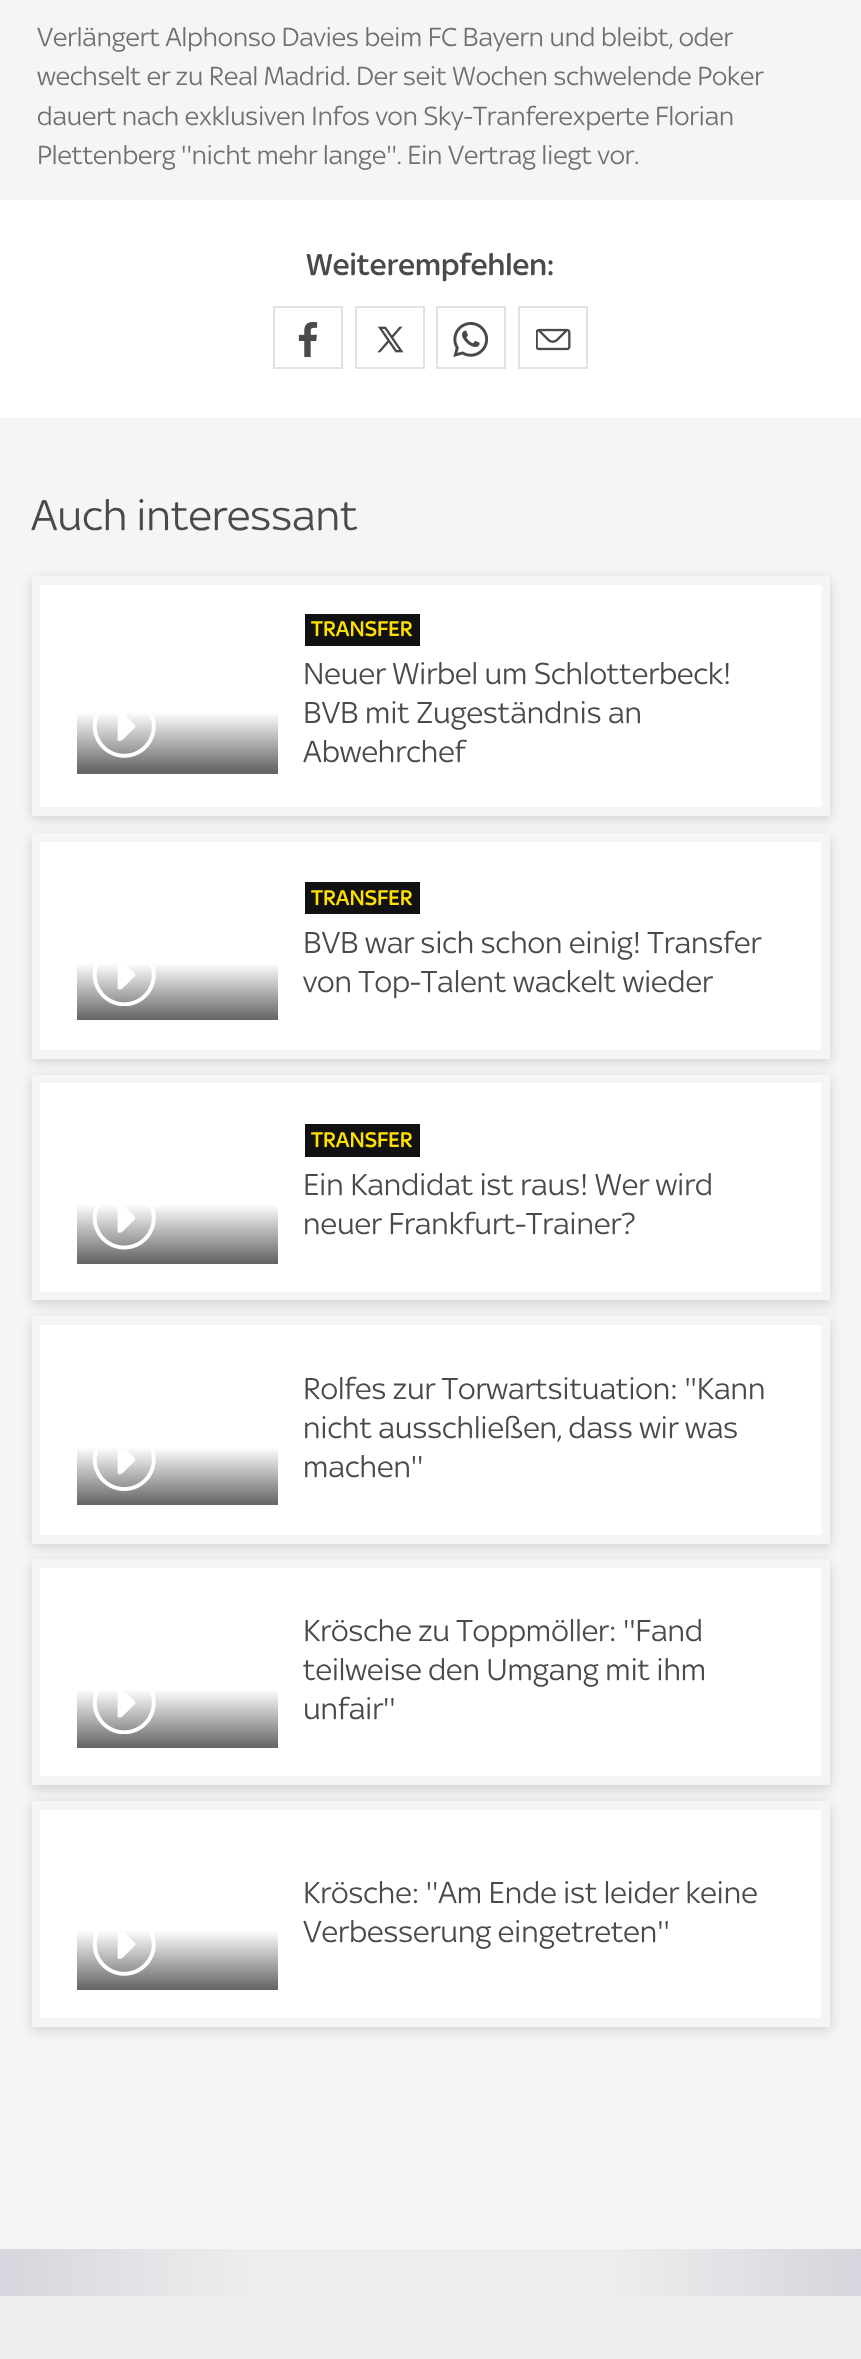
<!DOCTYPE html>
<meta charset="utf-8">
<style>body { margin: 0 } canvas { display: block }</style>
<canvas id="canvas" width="861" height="2359"></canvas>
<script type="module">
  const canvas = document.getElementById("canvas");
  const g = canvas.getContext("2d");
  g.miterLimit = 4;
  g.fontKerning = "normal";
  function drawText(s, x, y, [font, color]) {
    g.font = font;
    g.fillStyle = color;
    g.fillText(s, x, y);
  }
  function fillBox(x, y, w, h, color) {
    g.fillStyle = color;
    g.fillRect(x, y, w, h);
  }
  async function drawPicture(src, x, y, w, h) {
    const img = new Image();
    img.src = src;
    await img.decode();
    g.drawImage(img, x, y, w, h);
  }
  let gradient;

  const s1 = ["28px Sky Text", "#707070"];
  const s2 = ["500 32.4px Sky Text", "#4A4A4A"];
  const s3 = ["45.75px Sky Text", "#4A4A4A"];
  const s4 = ["500 22.75px Sky Text", "#FDE000"];
  const s5 = ["32.4px Sky Text", "#4A4A4A"];

  fillBox(0, 0, 861, 2359, "#FFFFFF");
  gradient = g.createLinearGradient(0, 1313, 861, 1313);
  gradient.addColorStop(0, "#D7D5DD");
  gradient.addColorStop(0.3, "#EEEEEE");
  gradient.addColorStop(0.7, "#EEEEEE");
  gradient.addColorStop(1, "#D7D5DD");
  g.fillStyle = gradient;
  g.fillRect(0, 2249, 861, 47);
  fillBox(0, 0, 861, 200, "#F4F5F7");
  drawText("Verlängert Alphonso Davies beim FC Bayern und bleibt, oder", 37, 46, s1);
  drawText("wechselt er zu Real Madrid. Der seit Wochen schwelende Poker", 37, 85, s1);
  drawText("dauert nach exklusiven Infos von Sky-Tranferexperte Florian", 37, 125, s1);
  drawText("Plettenberg ''nicht mehr lange''. Ein Vertrag liegt vor.", 37, 164, s1);
  drawText("Weiterempfehlen:", 306, 275, s2);
  g.strokeStyle = "#E2E2E2";
  g.lineWidth = 2;
  g.strokeRect(274, 307, 68, 61);
  await drawPicture("pic1.png", 298, 322, 20, 35);
  g.strokeRect(356, 307, 68, 61);
  await drawPicture("pic2.png", 377, 326, 27, 27);
  g.strokeRect(437, 307, 68, 61);
  await drawPicture("pic3.png", 453, 322, 35, 35);
  g.strokeRect(519, 307, 68, 61);
  await drawPicture("pic4.png", 536, 328, 35, 23);
  fillBox(0, 418, 861, 1831, "#F4F5F7");
  drawText("Auch interessant", 31, 530, s3);
  fillBox(40, 585, 781, 222, "#FFFFFF");
  g.save();
  g.beginPath();
  g.moveTo(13, 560);
  g.lineTo(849, 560);
  g.lineTo(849, 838);
  g.lineTo(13, 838);
  g.closePath();
  g.moveTo(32, 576);
  g.lineTo(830, 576);
  g.lineTo(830, 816);
  g.lineTo(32, 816);
  g.closePath();
  g.clip("evenodd");
  g.fillStyle = "rgba(0, 0, 0, 0.15)";
  g.filter = "blur(6px)";
  g.beginPath();
  g.rect(32, 579, 798, 240);
  g.fill();
  g.filter = "none";
  g.restore();
  gradient = g.createLinearGradient(178, 774, 178, 712);
  gradient.addColorStop(0.05, "#666666");
  gradient.addColorStop(1, "#FFFFFF");
  g.fillStyle = gradient;
  g.fillRect(77, 713, 201, 61);
  await drawPicture("pic5.png", 93, 714, 63, 44);
  fillBox(305, 614, 115, 32, "#111111");
  drawText("TRANSFER", 311, 636, s4);
  drawText("Neuer Wirbel um Schlotterbeck!", 303, 684, s5);
  drawText("BVB mit Zugeständnis an", 303, 723, s5);
  drawText("Abwehrchef", 303, 762, s5);
  fillBox(40, 842, 781, 208, "#FFFFFF");
  g.save();
  g.beginPath();
  g.moveTo(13, 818);
  g.lineTo(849, 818);
  g.lineTo(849, 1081);
  g.lineTo(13, 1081);
  g.closePath();
  g.moveTo(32, 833);
  g.lineTo(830, 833);
  g.lineTo(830, 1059);
  g.lineTo(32, 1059);
  g.closePath();
  g.clip("evenodd");
  g.fillStyle = "rgba(0, 0, 0, 0.15)";
  g.filter = "blur(6px)";
  g.beginPath();
  g.rect(32, 837, 798, 225);
  g.fill();
  g.filter = "none";
  g.restore();
  gradient = g.createLinearGradient(178, 1022, 178, 963);
  gradient.addColorStop(0.05, "#666666");
  gradient.addColorStop(1, "#FFFFFF");
  g.fillStyle = gradient;
  g.fillRect(77, 964, 201, 56);
  await drawPicture("pic6.png", 93, 965, 63, 41);
  fillBox(305, 882, 115, 32, "#111111");
  drawText("TRANSFER", 311, 905, s4);
  drawText("BVB war sich schon einig! Transfer", 303, 953, s5);
  drawText("von Top-Talent wackelt wieder", 303, 992, s5);
  fillBox(40, 1083, 781, 209, "#FFFFFF");
  g.save();
  g.beginPath();
  g.moveTo(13, 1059);
  g.lineTo(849, 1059);
  g.lineTo(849, 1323);
  g.lineTo(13, 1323);
  g.closePath();
  g.moveTo(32, 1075);
  g.lineTo(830, 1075);
  g.lineTo(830, 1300);
  g.lineTo(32, 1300);
  g.closePath();
  g.clip("evenodd");
  g.fillStyle = "rgba(0, 0, 0, 0.15)";
  g.filter = "blur(6px)";
  g.beginPath();
  g.rect(32, 1078, 798, 226);
  g.fill();
  g.filter = "none";
  g.restore();
  gradient = g.createLinearGradient(178, 1265, 178, 1204);
  gradient.addColorStop(0.05, "#666666");
  gradient.addColorStop(1, "#FFFFFF");
  g.fillStyle = gradient;
  g.fillRect(77, 1205, 201, 59);
  await drawPicture("pic7.png", 93, 1206, 63, 44);
  fillBox(305, 1124, 115, 33, "#111111");
  drawText("TRANSFER", 311, 1147, s4);
  drawText("Ein Kandidat ist raus! Wer wird", 303, 1195, s5);
  drawText("neuer Frankfurt-Trainer?", 303, 1234, s5);
  fillBox(40, 1325, 781, 210, "#FFFFFF");
  g.save();
  g.beginPath();
  g.moveTo(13, 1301);
  g.lineTo(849, 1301);
  g.lineTo(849, 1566);
  g.lineTo(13, 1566);
  g.closePath();
  g.moveTo(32, 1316);
  g.lineTo(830, 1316);
  g.lineTo(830, 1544);
  g.lineTo(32, 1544);
  g.closePath();
  g.clip("evenodd");
  g.fillStyle = "rgba(0, 0, 0, 0.15)";
  g.filter = "blur(6px)";
  g.beginPath();
  g.rect(32, 1320, 798, 227);
  g.fill();
  g.filter = "none";
  g.restore();
  gradient = g.createLinearGradient(178, 1507, 178, 1447);
  gradient.addColorStop(0.05, "#666666");
  gradient.addColorStop(1, "#FFFFFF");
  g.fillStyle = gradient;
  g.fillRect(77, 1448, 201, 57);
  await drawPicture("pic8.png", 93, 1449, 63, 42);
  drawText("Rolfes zur Torwartsituation: ''Kann", 303, 1399, s5);
  drawText("nicht ausschließen, dass wir was", 303, 1438, s5);
  drawText("machen''", 303, 1477, s5);
  fillBox(40, 1568, 781, 208, "#FFFFFF");
  g.save();
  g.beginPath();
  g.moveTo(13, 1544);
  g.lineTo(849, 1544);
  g.lineTo(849, 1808);
  g.lineTo(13, 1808);
  g.closePath();
  g.moveTo(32, 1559);
  g.lineTo(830, 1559);
  g.lineTo(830, 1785);
  g.lineTo(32, 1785);
  g.closePath();
  g.clip("evenodd");
  g.fillStyle = "rgba(0, 0, 0, 0.15)";
  g.filter = "blur(6px)";
  g.beginPath();
  g.rect(32, 1563, 798, 226);
  g.fill();
  g.filter = "none";
  g.restore();
  gradient = g.createLinearGradient(178, 1750, 178, 1689);
  gradient.addColorStop(0.05, "#666666");
  gradient.addColorStop(1, "#FFFFFF");
  g.fillStyle = gradient;
  g.fillRect(77, 1690, 201, 58);
  await drawPicture("pic9.png", 93, 1691, 63, 43);
  drawText("Krösche zu Toppmöller: ''Fand", 303, 1641, s5);
  drawText("teilweise den Umgang mit ihm", 303, 1680, s5);
  drawText("unfair''", 303, 1719, s5);
  fillBox(40, 1810, 781, 208, "#FFFFFF");
  g.save();
  g.beginPath();
  g.moveTo(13, 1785);
  g.lineTo(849, 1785);
  g.lineTo(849, 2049);
  g.lineTo(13, 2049);
  g.closePath();
  g.moveTo(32, 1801);
  g.lineTo(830, 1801);
  g.lineTo(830, 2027);
  g.lineTo(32, 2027);
  g.closePath();
  g.clip("evenodd");
  g.fillStyle = "rgba(0, 0, 0, 0.15)";
  g.filter = "blur(6px)";
  g.beginPath();
  g.rect(32, 1804, 798, 226);
  g.fill();
  g.filter = "none";
  g.restore();
  drawText("Krösche: ''Am Ende ist leider keine", 303, 1903, s5);
  drawText("Verbesserung eingetreten''", 303, 1942, s5);
  gradient = g.createLinearGradient(178, 1992, 178, 1930);
  gradient.addColorStop(0.05, "#666666");
  gradient.addColorStop(1, "#FFFFFF");
  g.fillStyle = gradient;
  g.fillRect(77, 1931, 201, 59);
  await drawPicture("pic5.png", 93, 1932, 63, 44);
  fillBox(0, 2296, 861, 63, "#EEEEEE");
</script>
